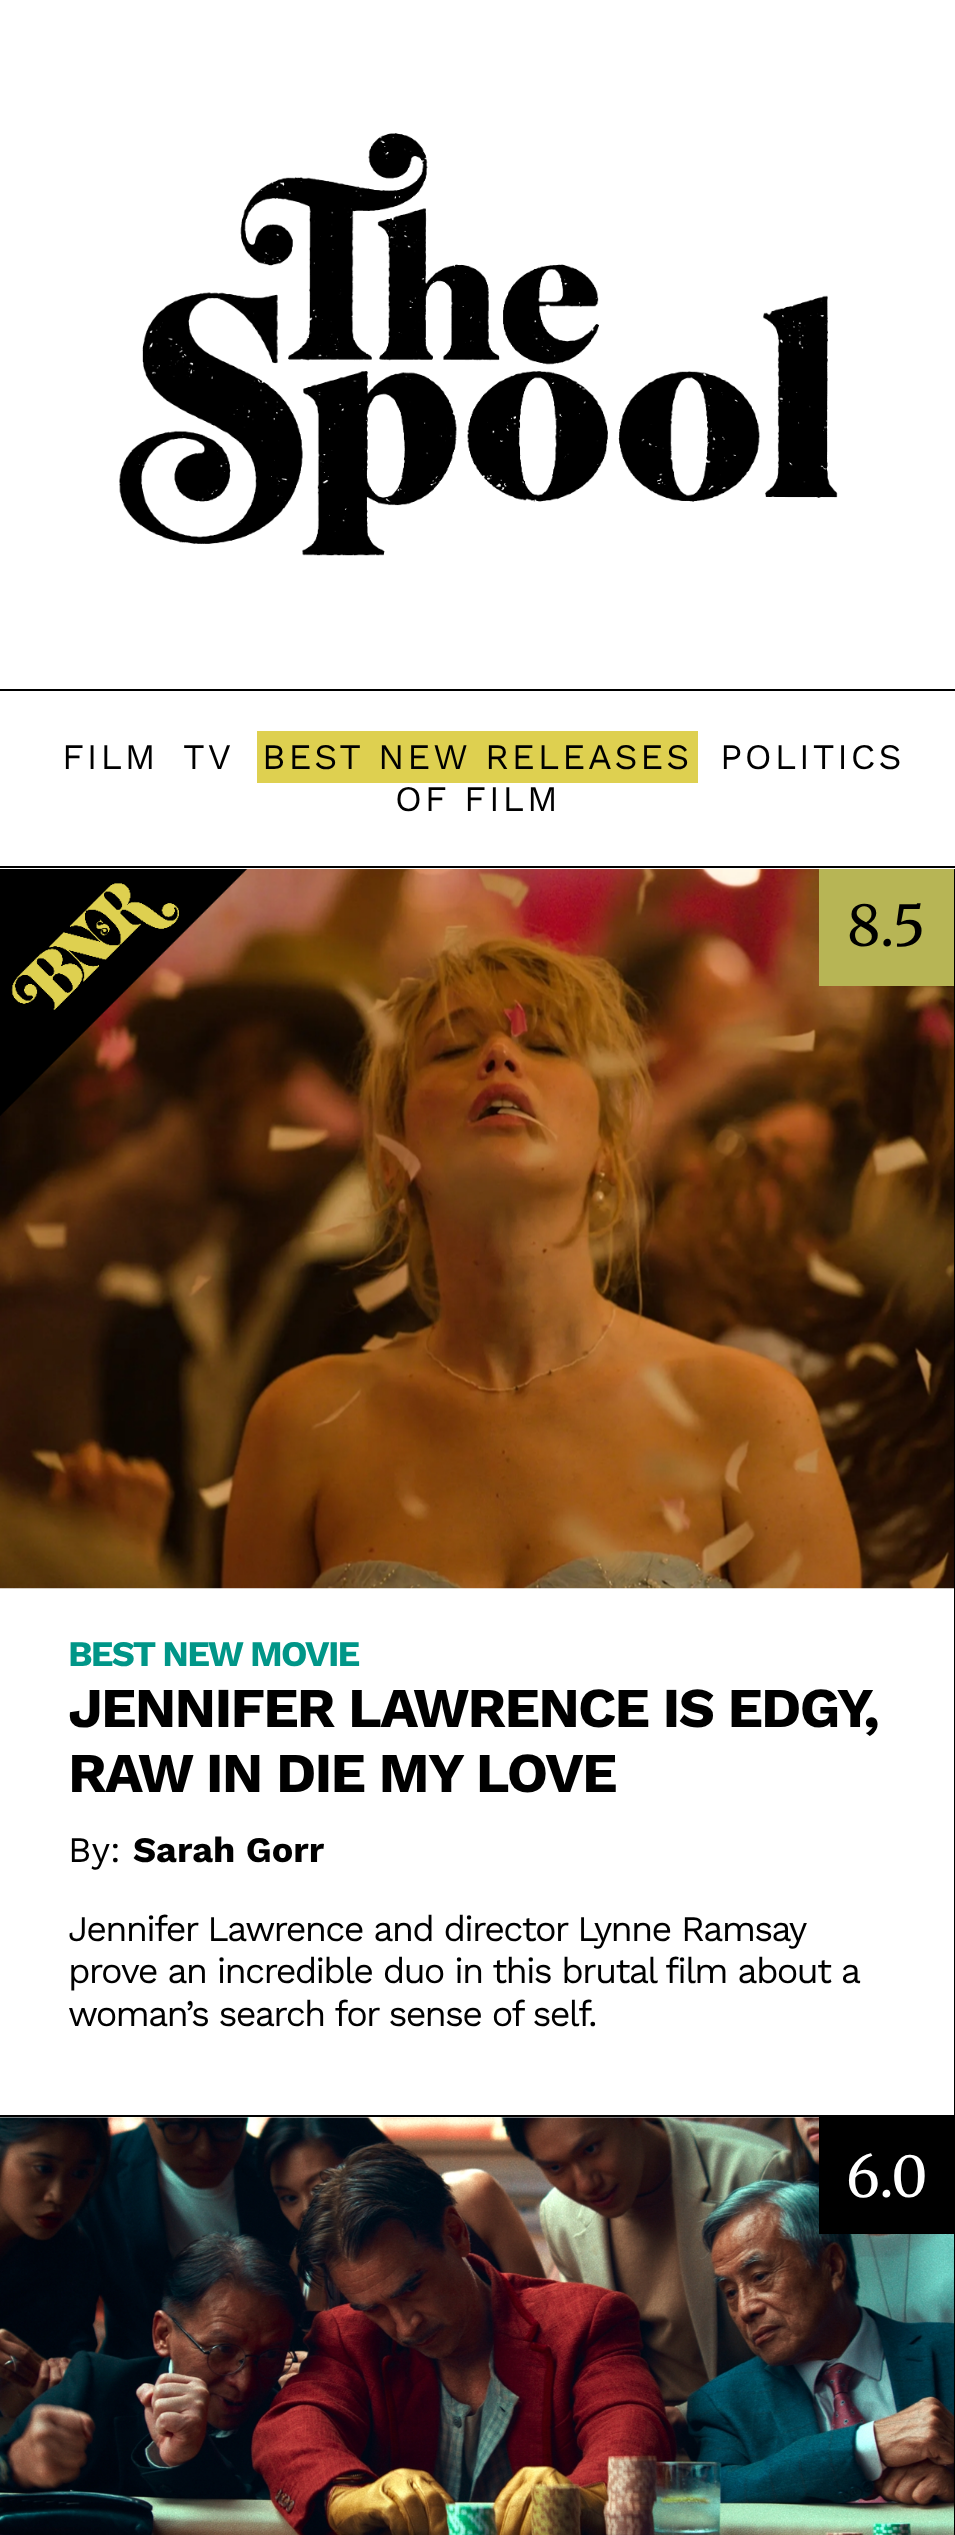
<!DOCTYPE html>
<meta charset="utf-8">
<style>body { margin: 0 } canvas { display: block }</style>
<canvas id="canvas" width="955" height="2535"></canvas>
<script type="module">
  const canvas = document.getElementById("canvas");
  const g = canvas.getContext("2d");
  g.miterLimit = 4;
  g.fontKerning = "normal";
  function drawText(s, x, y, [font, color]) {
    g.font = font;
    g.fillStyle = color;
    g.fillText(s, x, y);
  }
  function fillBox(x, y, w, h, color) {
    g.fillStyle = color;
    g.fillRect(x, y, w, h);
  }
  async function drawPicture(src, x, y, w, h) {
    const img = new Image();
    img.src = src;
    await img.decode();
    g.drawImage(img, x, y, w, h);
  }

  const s1 = ["36px Work Sans", "#000000"];
  const s2 = ["56.25px Merriweather", "#000000"];
  const s3 = ["bold 36px Work Sans", "#009688"];
  const s4 = ["bold 56.25px Work Sans", "#000000"];
  const s5 = ["bold 36px Work Sans", "#000000"];
  const s6 = ["56.25px Merriweather", "#FFFFFF"];

  fillBox(0, 0, 955, 2535, "#FFFFFF");
  fillBox(0, 689, 955, 2, "#000000");
  await drawPicture("pic1.png", 119, 133, 719, 423);
  fillBox(0, 866, 955, 2, "#000000");
  g.letterSpacing = "2.9px";
  drawText("FILM", 62, 769, s1);
  drawText("TV", 183, 769, s1);
  fillBox(257, 731, 441, 52, "#DED050");
  drawText("BEST NEW RELEASES", 262, 769, s1);
  drawText("POLITICS", 720, 769, s1);
  drawText("OF FILM", 395, 811, s1);
  fillBox(954, 869, 1, 1666, "#000000");
  fillBox(0, 2115, 955, 2, "#000000");
  await drawPicture("pic2.png", 0, 869, 954, 720);
  await drawPicture("pic3.png", 0, 869, 248, 247);
  fillBox(819, 869, 135, 117, "#B7B555");
  g.letterSpacing = "0px";
  drawText("8.5", 847, 946, s2);
  g.letterSpacing = "-1.8px";
  drawText("BEST NEW MOVIE", 68, 1666, s3);
  drawText("JENNIFER LAWRENCE IS EDGY,", 68, 1727, s4);
  drawText("RAW IN DIE MY LOVE", 68, 1792, s4);
  g.letterSpacing = "0px";
  drawText("By:", 68, 1862, s1);
  drawText("Sarah Gorr", 133, 1862, s5);
  g.letterSpacing = "-1.8px";
  drawText("Jennifer Lawrence and director Lynne Ramsay", 68, 1941, s1);
  drawText("prove an incredible duo in this brutal film about a", 68, 1983, s1);
  drawText("woman’s search for sense of self.", 68, 2026, s1);
  await drawPicture("pic4.png", 0, 2117, 954, 418);
  fillBox(819, 2117, 135, 117, "#000000");
  g.letterSpacing = "0px";
  drawText("6.0", 846, 2197, s6);
</script>
